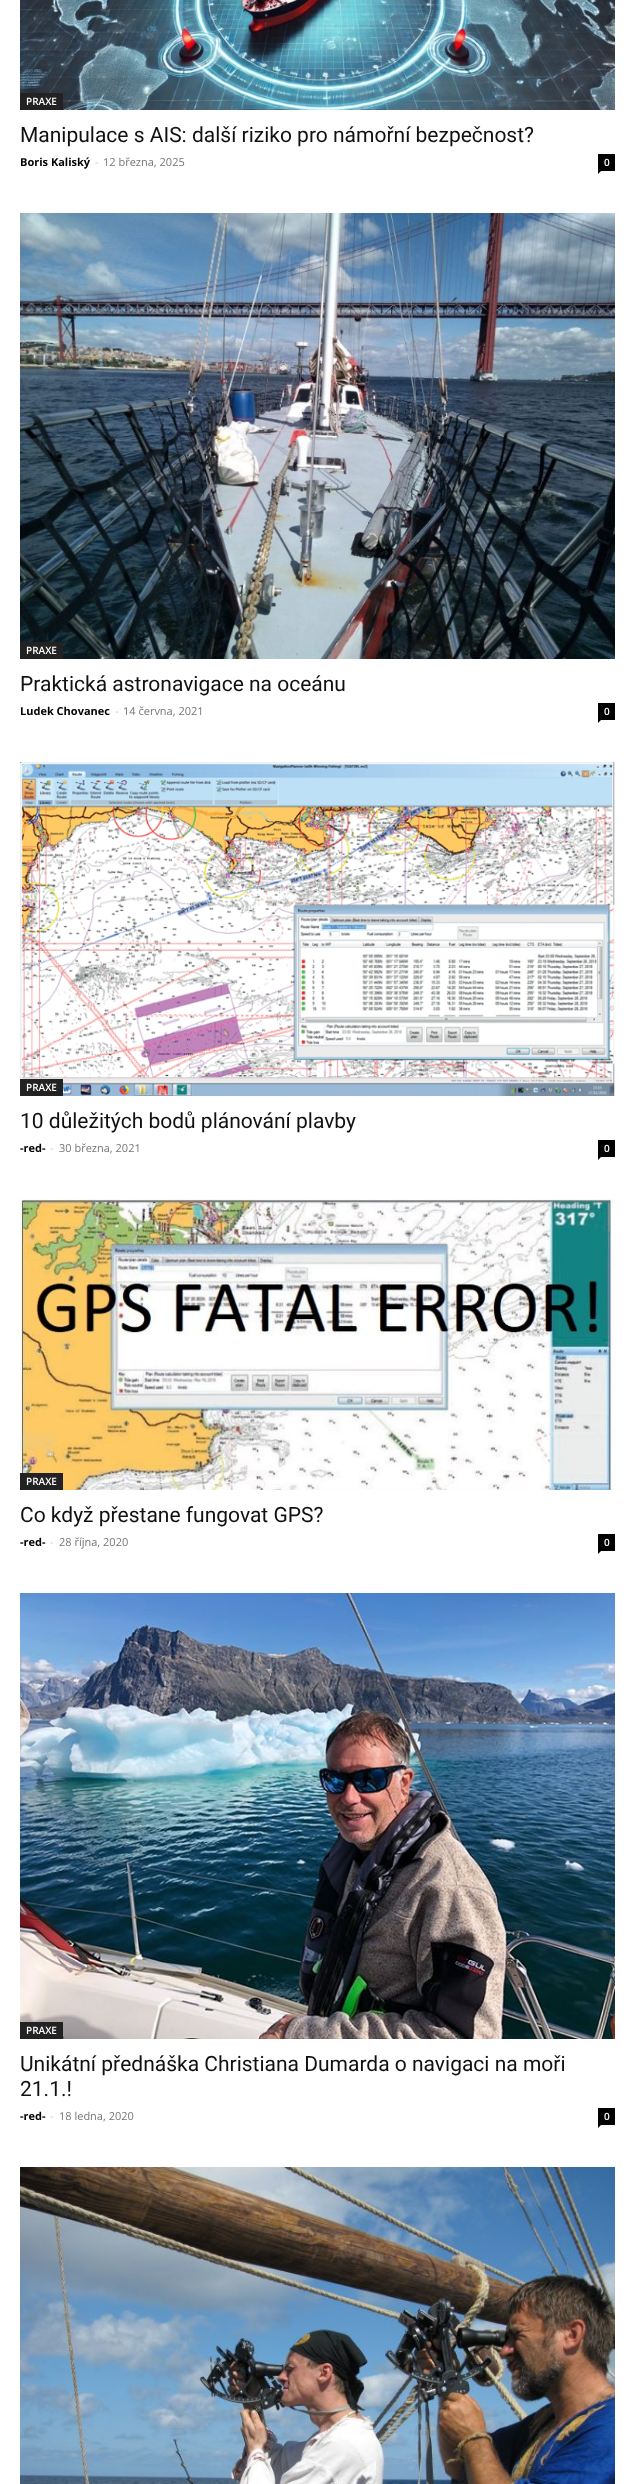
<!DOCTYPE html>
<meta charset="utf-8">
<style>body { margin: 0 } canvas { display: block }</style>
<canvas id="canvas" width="635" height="2484"></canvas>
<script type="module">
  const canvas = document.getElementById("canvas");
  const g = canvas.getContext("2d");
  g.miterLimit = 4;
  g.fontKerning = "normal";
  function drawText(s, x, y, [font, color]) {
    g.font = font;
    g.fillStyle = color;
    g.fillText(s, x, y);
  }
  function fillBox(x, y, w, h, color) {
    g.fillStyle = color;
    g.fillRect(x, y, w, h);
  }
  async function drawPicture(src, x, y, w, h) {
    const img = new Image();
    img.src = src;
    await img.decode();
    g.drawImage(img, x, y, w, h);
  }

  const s1 = ["600 10px Open Sans", "#FFFFFF"];
  const s2 = ["21px Roboto", "#111111"];
  const s3 = ["bold 11px Open Sans", "#000000"];
  const s4 = ["11px Open Sans", "#CCCCCC"];
  const s5 = ["11px Open Sans", "#767676"];

  fillBox(0, 0, 635, 2484, "#FFFFFF");
  await drawPicture("pic1.png", 20, 0, 595, 110);
  fillBox(20, 93, 43, 17, "#222222");
  drawText("PRAXE", 26, 105, s1);
  drawText("Manipulace s AIS: další riziko pro námořní bezpečnost?", 20, 142, s2);
  drawText("Boris Kaliský", 20, 166, s3);
  drawText("-", 95, 166, s4);
  drawText("12 března, 2025", 103, 166, s5);
  fillBox(598, 154, 17, 17, "#000000");
  drawText("0", 604, 166, s1);
  g.fillStyle = "#000000";
  g.beginPath();
  g.moveTo(598, 171);
  g.lineTo(601, 171);
  g.lineTo(598, 174);
  g.closePath();
  g.fill();
  await drawPicture("pic2.png", 20, 213, 595, 446);
  fillBox(20, 642, 43, 17, "#222222");
  drawText("PRAXE", 26, 654, s1);
  drawText("Praktická astronavigace na oceánu", 20, 691, s2);
  drawText("Ludek Chovanec", 20, 715, s3);
  drawText("-", 115, 715, s4);
  drawText("14 června, 2021", 123, 715, s5);
  fillBox(598, 703, 17, 17, "#000000");
  drawText("0", 604, 715, s1);
  g.fillStyle = "#000000";
  g.beginPath();
  g.moveTo(598, 720);
  g.lineTo(601, 720);
  g.lineTo(598, 723);
  g.closePath();
  g.fill();
  await drawPicture("pic3.png", 20, 762, 595, 334);
  fillBox(20, 1079, 43, 17, "#222222");
  drawText("PRAXE", 26, 1091, s1);
  drawText("10 důležitých bodů plánování plavby", 20, 1128, s2);
  drawText("-red-", 20, 1152, s3);
  drawText("-", 50, 1152, s4);
  drawText("30 března, 2021", 59, 1152, s5);
  fillBox(598, 1140, 17, 17, "#000000");
  drawText("0", 604, 1152, s1);
  g.fillStyle = "#000000";
  g.beginPath();
  g.moveTo(598, 1157);
  g.lineTo(601, 1157);
  g.lineTo(598, 1160);
  g.closePath();
  g.fill();
  await drawPicture("pic4.png", 20, 1199, 595, 291);
  fillBox(20, 1473, 43, 17, "#222222");
  drawText("PRAXE", 26, 1485, s1);
  drawText("Co když přestane fungovat GPS?", 20, 1522, s2);
  drawText("-red-", 20, 1546, s3);
  drawText("-", 50, 1546, s4);
  drawText("28 října, 2020", 59, 1546, s5);
  fillBox(598, 1534, 17, 17, "#000000");
  drawText("0", 604, 1546, s1);
  g.fillStyle = "#000000";
  g.beginPath();
  g.moveTo(598, 1551);
  g.lineTo(601, 1551);
  g.lineTo(598, 1554);
  g.closePath();
  g.fill();
  await drawPicture("pic5.png", 20, 1593, 595, 446);
  fillBox(20, 2022, 43, 17, "#222222");
  drawText("PRAXE", 26, 2034, s1);
  drawText("Unikátní přednáška Christiana Dumarda o navigaci na moři", 20, 2071, s2);
  drawText("21.1.!", 20, 2096, s2);
  drawText("-red-", 20, 2120, s3);
  drawText("-", 50, 2120, s4);
  drawText("18 ledna, 2020", 59, 2120, s5);
  fillBox(598, 2108, 17, 17, "#000000");
  drawText("0", 604, 2120, s1);
  g.fillStyle = "#000000";
  g.beginPath();
  g.moveTo(598, 2125);
  g.lineTo(601, 2125);
  g.lineTo(598, 2128);
  g.closePath();
  g.fill();
  await drawPicture("pic6.png", 20, 2167, 595, 317);
</script>
